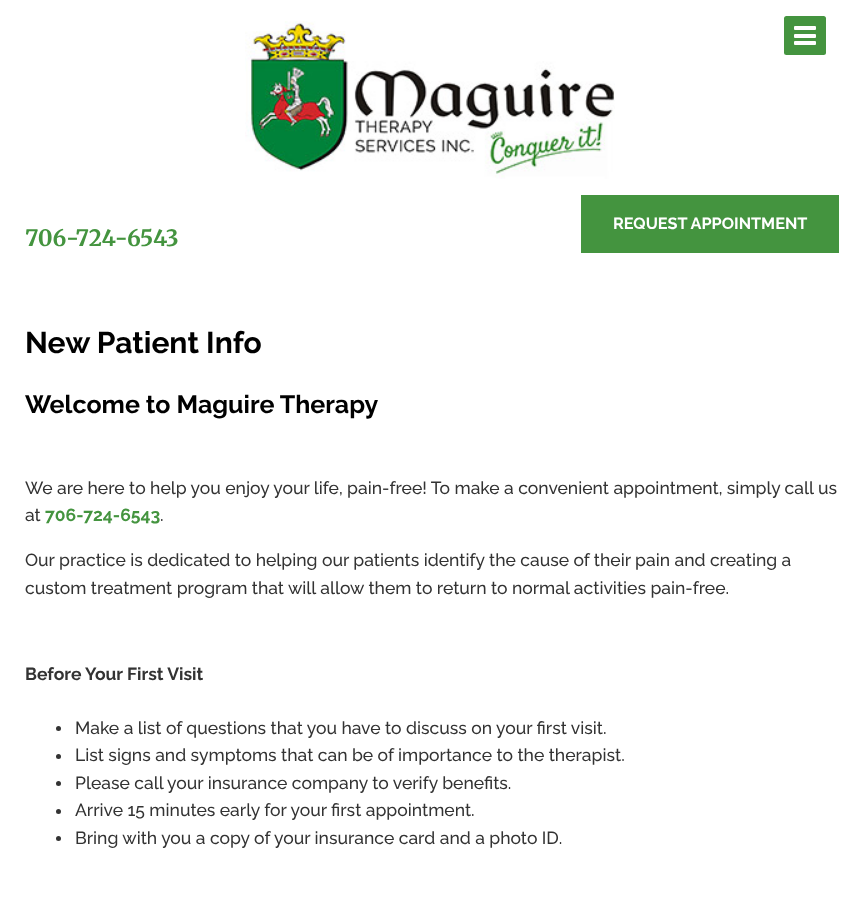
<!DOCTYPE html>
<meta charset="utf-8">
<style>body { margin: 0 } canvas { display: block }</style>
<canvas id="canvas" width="863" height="916"></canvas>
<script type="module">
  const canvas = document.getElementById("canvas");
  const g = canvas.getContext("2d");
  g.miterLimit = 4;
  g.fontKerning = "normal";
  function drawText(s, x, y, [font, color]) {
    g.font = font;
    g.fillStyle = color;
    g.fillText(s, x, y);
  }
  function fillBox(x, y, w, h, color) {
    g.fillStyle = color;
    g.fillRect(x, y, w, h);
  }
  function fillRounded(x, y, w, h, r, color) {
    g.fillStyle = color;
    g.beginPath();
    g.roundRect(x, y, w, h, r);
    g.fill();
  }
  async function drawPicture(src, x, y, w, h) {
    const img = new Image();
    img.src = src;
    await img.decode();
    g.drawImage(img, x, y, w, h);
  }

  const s1 = ["bold 16.25px Raleway", "#FFFFFF"];
  const s2 = ["bold 22.5px Merriweather", "#44943F"];
  const s3 = ["bold 30px Raleway", "#000000"];
  const s4 = ["bold 25px Raleway", "#000000"];
  const s5 = ["500 17.5px Raleway", "#333333"];
  const s6 = ["bold 17.5px Raleway", "#44943F"];
  const s7 = ["bold 17.5px Raleway", "#333333"];

  fillBox(0, 0, 863, 916, "#FFFFFF");
  await drawPicture("pic1.png", 245, 21, 370, 158);
  fillRounded(784, 16, 42, 39, 2.5, "#44943F");
  fillRounded(794, 26, 22, 4, 1, "#FFFFFF");
  fillRounded(794, 34, 22, 4, 1, "#FFFFFF");
  fillRounded(794, 41, 22, 4, 1, "#FFFFFF");
  fillBox(581, 195, 258, 58, "#44943F");
  drawText("REQUEST APPOINTMENT", 613, 229, s1);
  drawText("706-724-6543", 25, 246, s2);
  drawText("New Patient Info", 25, 353, s3);
  drawText("Welcome to Maguire Therapy", 25, 413, s4);
  drawText("We are here to help you enjoy your life, pain-free! To make a convenient appointment, simply call us", 25, 494, s5);
  drawText("at", 25, 521, s5);
  drawText("706-724-6543", 45, 521, s6);
  drawText(".", 160, 521, s5);
  drawText("Our practice is dedicated to helping our patients identify the cause of their pain and creating a", 25, 566, s5);
  drawText("custom treatment program that will allow them to return to normal activities pain-free.", 25, 594, s5);
  drawText("Before Your First Visit", 25, 680, s7);
  g.beginPath();
  g.arc(58.5, 728.5, 2.5, 0, Math.PI * 2);
  g.fill();
  drawText("Make a list of questions that you have to discuss on your first visit.", 75, 734, s5);
  g.beginPath();
  g.arc(58.5, 756.5, 2.5, 0, Math.PI * 2);
  g.fill();
  drawText("List signs and symptoms that can be of importance to the therapist.", 75, 761, s5);
  g.beginPath();
  g.arc(58.5, 783.5, 2.5, 0, Math.PI * 2);
  g.fill();
  drawText("Please call your insurance company to verify benefits.", 75, 789, s5);
  g.beginPath();
  g.arc(58.5, 811.5, 2.5, 0, Math.PI * 2);
  g.fill();
  drawText("Arrive 15 minutes early for your first appointment.", 75, 816, s5);
  g.beginPath();
  g.arc(58.5, 838.5, 2.5, 0, Math.PI * 2);
  g.fill();
  drawText("Bring with you a copy of your insurance card and a photo ID.", 75, 844, s5);
</script>
